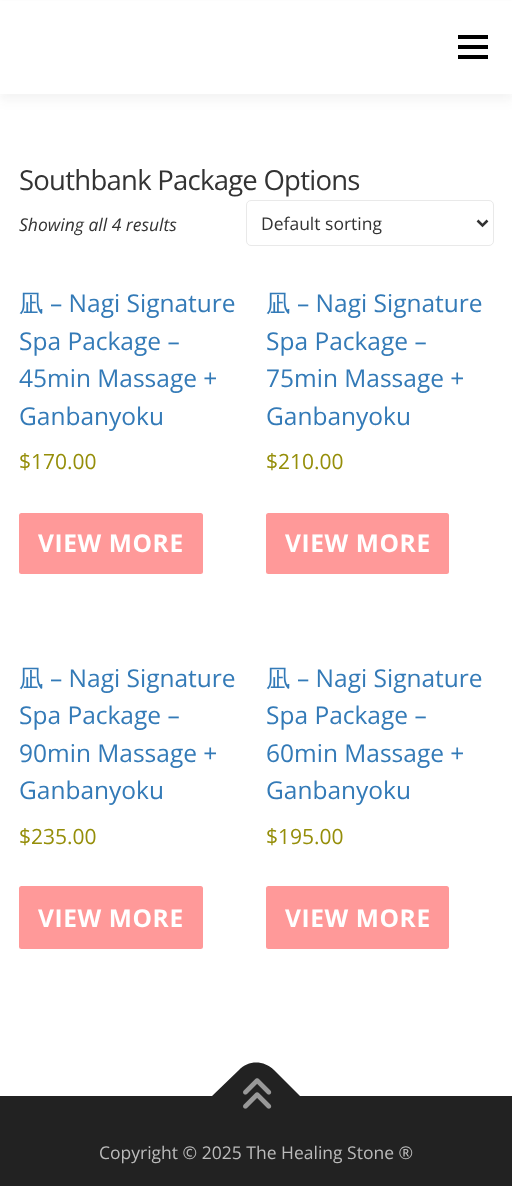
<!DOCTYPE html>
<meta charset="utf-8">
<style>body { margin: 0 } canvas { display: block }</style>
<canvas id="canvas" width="512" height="1186"></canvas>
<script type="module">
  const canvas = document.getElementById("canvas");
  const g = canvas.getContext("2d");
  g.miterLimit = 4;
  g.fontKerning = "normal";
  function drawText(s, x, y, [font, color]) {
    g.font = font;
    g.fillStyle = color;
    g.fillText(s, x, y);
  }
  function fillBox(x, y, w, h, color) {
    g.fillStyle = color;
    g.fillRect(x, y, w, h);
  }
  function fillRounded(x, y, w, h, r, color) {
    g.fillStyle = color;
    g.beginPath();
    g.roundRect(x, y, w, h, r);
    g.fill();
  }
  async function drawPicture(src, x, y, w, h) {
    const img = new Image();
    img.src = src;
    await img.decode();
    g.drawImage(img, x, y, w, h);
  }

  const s1 = ["27.5px Open Sans", "#333333"];
  const s2 = ["italic 17.5px Open Sans", "#333333"];
  const s3 = ["17.5px Open Sans", "#333333"];
  const s4 = ["500 24.5px WenQuanYi Zen Hei", "#337AB7"];
  const s5 = ["24.5px Open Sans", "#337AB7"];
  const s6 = ["21px Open Sans", "#958E09"];
  const s7 = ["bold 24.5px Open Sans", "#FFFFFF"];
  const s8 = ["17.5px Open Sans", "#BBBBBB"];

  fillBox(0, 0, 512, 1186, "#FFFFFF");
  g.fillStyle = "rgba(50, 50, 50, 0.06)";
  g.filter = "blur(6px)";
  g.beginPath();
  g.rect(0, 6, 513, 94);
  g.fill();
  g.filter = "none";
  fillBox(0, 1, 512, 93, "#FFFFFF");
  fillBox(458, 45, 30, 4, "#000000");
  fillBox(458, 35, 30, 4, "#000000");
  fillBox(458, 55, 30, 4, "#000000");
  g.letterSpacing = "-0.75px";
  drawText("Southbank Package Options", 19, 190, s1);
  g.letterSpacing = "0px";
  drawText("Showing all 4 results", 19, 231, s2);
  g.beginPath();
  g.roundRect(246.5, 200.5, 247, 45, 4.5);
  g.strokeStyle = "#E9E9E9";
  g.stroke();
  g.beginPath();
  g.moveTo(477.5, 220.5);
  g.lineTo(482.5, 225.5);
  g.lineTo(487.5, 220.5);
  g.strokeStyle = "#333333";
  g.lineWidth = 2.5;
  g.stroke();
  drawText("Default sorting", 261, 230, s3);
  drawText("凪", 19, 312, s4);
  drawText("– Nagi Signature", 50, 312, s5);
  drawText("Spa Package –", 19, 350, s5);
  drawText("45min Massage +", 19, 387, s5);
  drawText("Ganbanyoku", 19, 425, s5);
  drawText("$170.00", 19, 469, s6);
  fillRounded(19, 513, 184, 61, 2.5, "#FF9999");
  g.letterSpacing = "0.6px";
  drawText("VIEW MORE", 38, 552, s7);
  g.letterSpacing = "0px";
  drawText("凪", 266, 312, s4);
  drawText("– Nagi Signature", 297, 312, s5);
  drawText("Spa Package –", 266, 350, s5);
  drawText("75min Massage +", 266, 387, s5);
  drawText("Ganbanyoku", 266, 425, s5);
  drawText("$210.00", 266, 469, s6);
  fillRounded(266, 513, 183, 61, 2.5, "#FF9999");
  g.letterSpacing = "0.6px";
  drawText("VIEW MORE", 285, 552, s7);
  g.letterSpacing = "0px";
  drawText("凪", 19, 687, s4);
  drawText("– Nagi Signature", 50, 687, s5);
  drawText("Spa Package –", 19, 724, s5);
  drawText("90min Massage +", 19, 762, s5);
  drawText("Ganbanyoku", 19, 799, s5);
  drawText("$235.00", 19, 844, s6);
  fillRounded(19, 886, 184, 63, 2.5, "#FF9999");
  g.letterSpacing = "0.6px";
  drawText("VIEW MORE", 38, 927, s7);
  g.letterSpacing = "0px";
  drawText("凪", 266, 687, s4);
  drawText("– Nagi Signature", 297, 687, s5);
  drawText("Spa Package –", 266, 724, s5);
  drawText("60min Massage +", 266, 762, s5);
  drawText("Ganbanyoku", 266, 799, s5);
  drawText("$195.00", 266, 844, s6);
  fillRounded(266, 886, 183, 63, 2.5, "#FF9999");
  g.letterSpacing = "0.6px";
  drawText("VIEW MORE", 285, 927, s7);
  fillBox(0, 1096, 512, 90, "#222222");
  g.beginPath();
  g.moveTo(212, 1096);
  g.lineTo(239, 1070);
  g.bezierCurveTo(248, 1060, 264, 1060, 274, 1070);
  g.lineTo(300, 1096);
  g.lineTo(256, 1141);
  g.closePath();
  g.fill();
  await drawPicture("pic1.png", 243, 1078, 29, 31);
  g.letterSpacing = "0px";
  drawText("Copyright © 2025 The Healing Stone ®", 99, 1159, s8);
</script>
